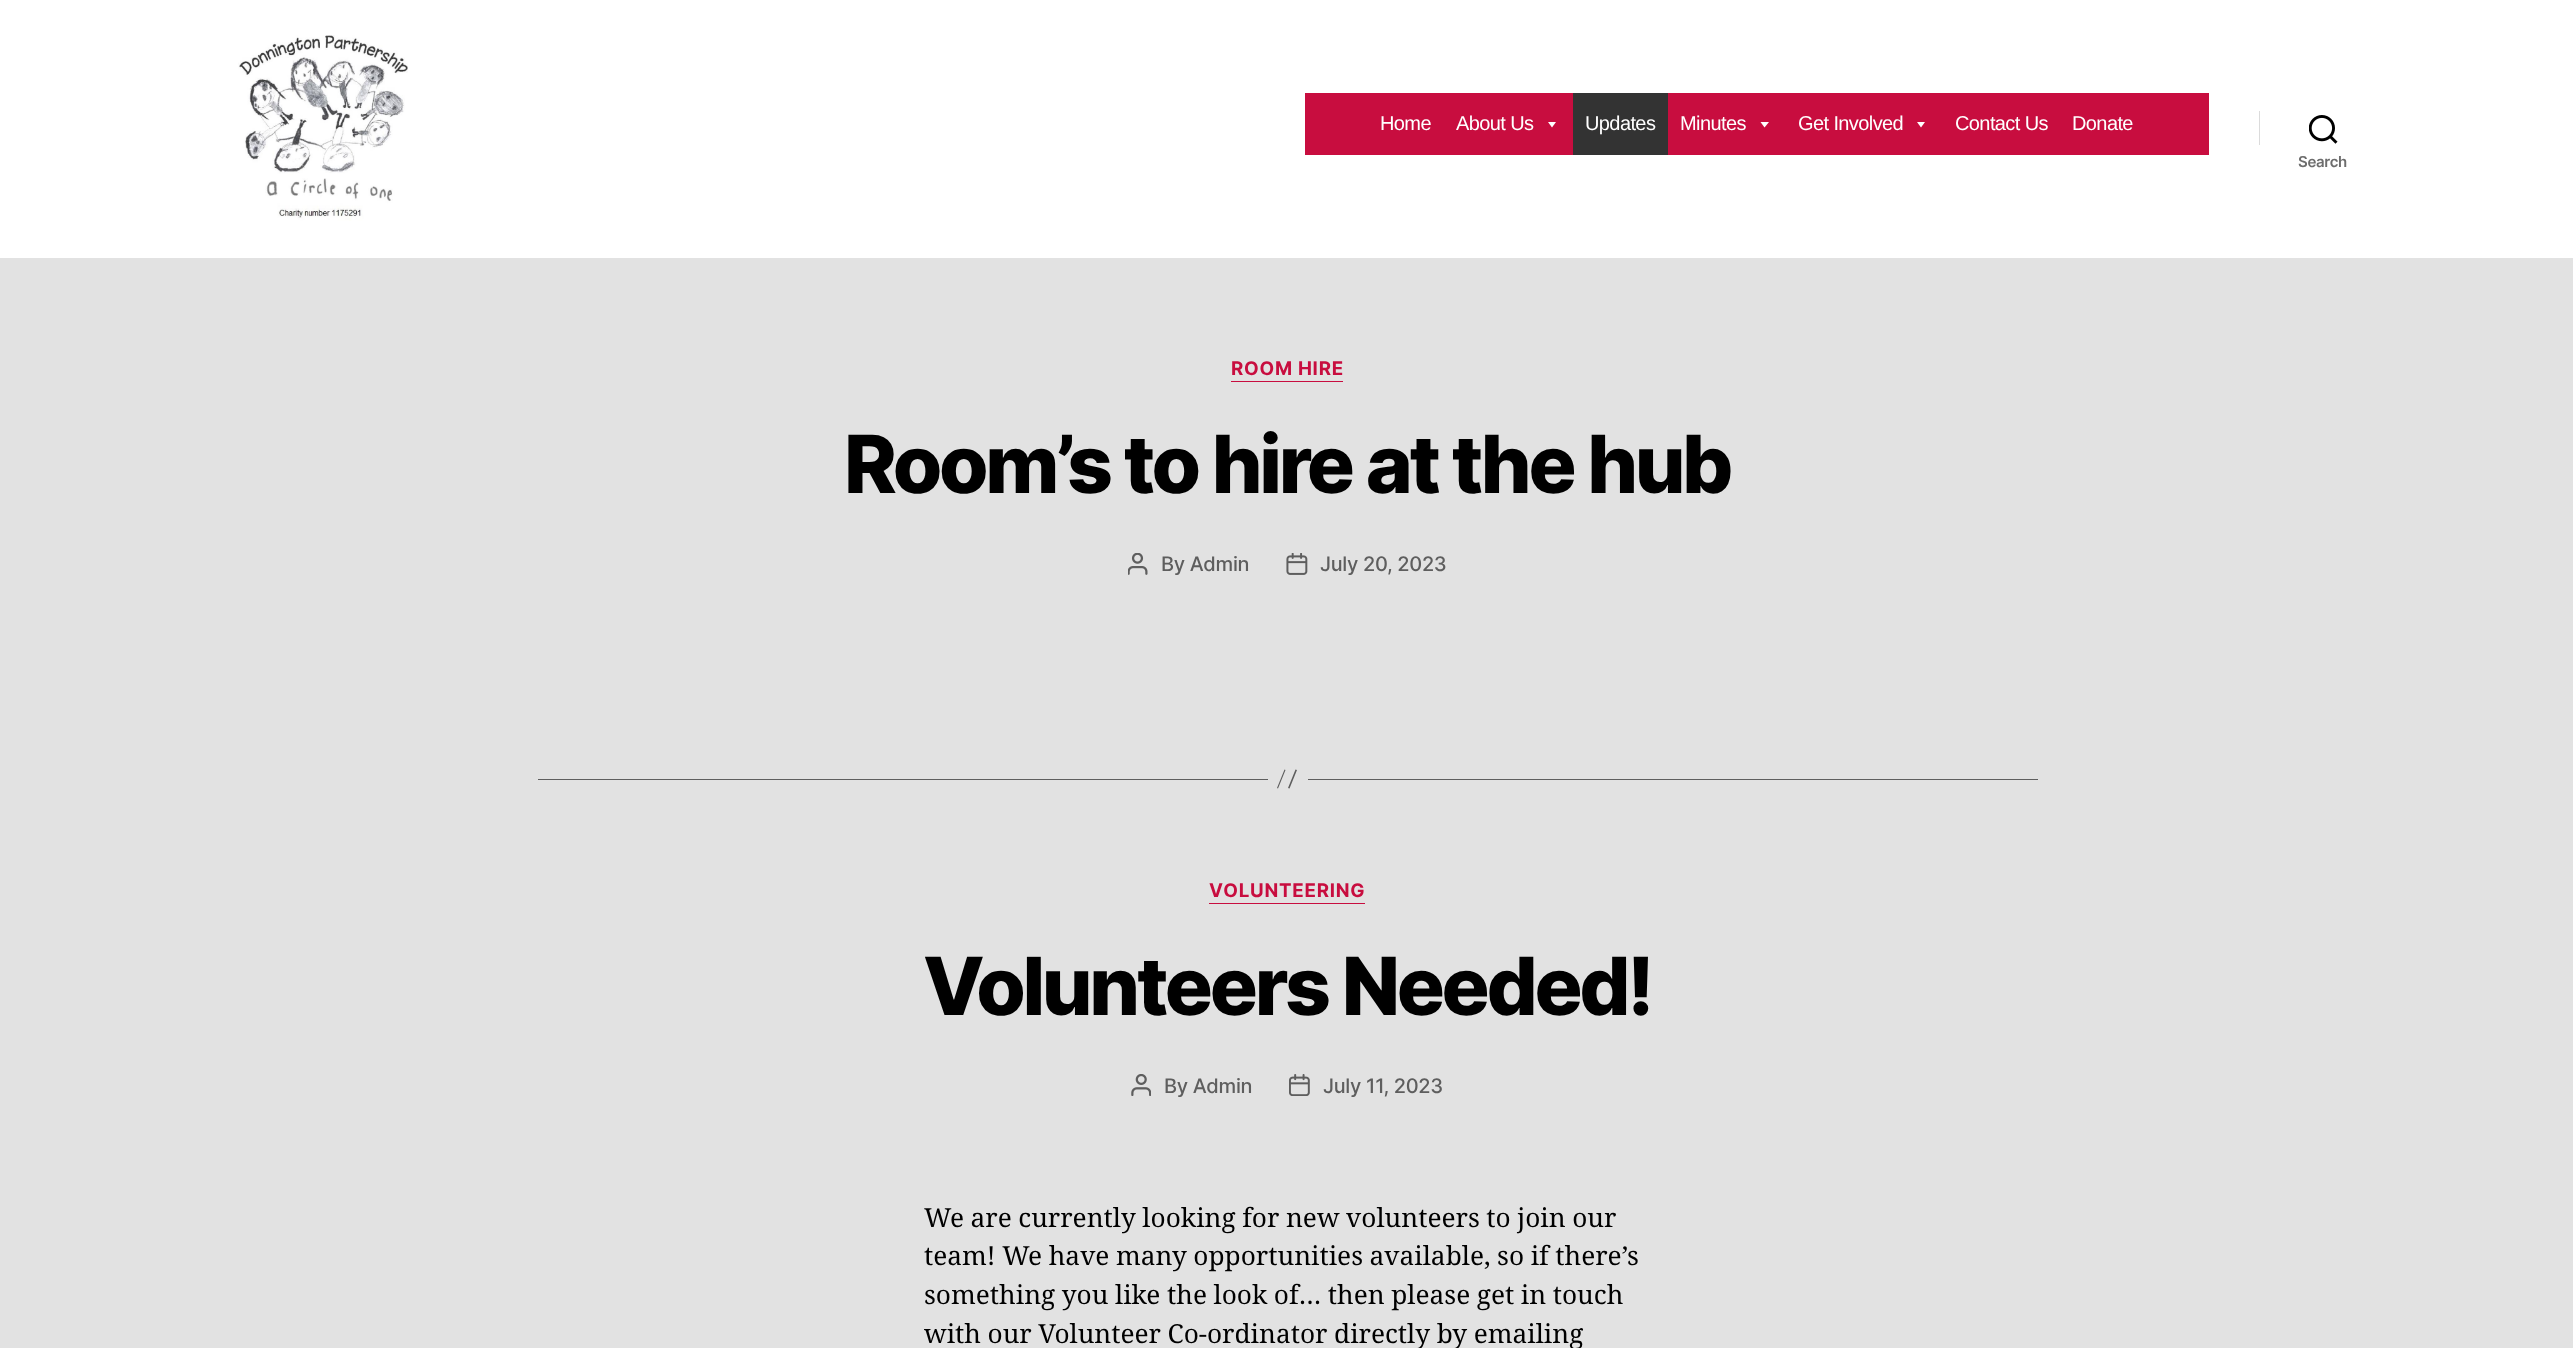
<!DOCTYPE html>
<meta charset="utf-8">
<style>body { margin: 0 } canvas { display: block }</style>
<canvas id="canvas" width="2573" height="1348"></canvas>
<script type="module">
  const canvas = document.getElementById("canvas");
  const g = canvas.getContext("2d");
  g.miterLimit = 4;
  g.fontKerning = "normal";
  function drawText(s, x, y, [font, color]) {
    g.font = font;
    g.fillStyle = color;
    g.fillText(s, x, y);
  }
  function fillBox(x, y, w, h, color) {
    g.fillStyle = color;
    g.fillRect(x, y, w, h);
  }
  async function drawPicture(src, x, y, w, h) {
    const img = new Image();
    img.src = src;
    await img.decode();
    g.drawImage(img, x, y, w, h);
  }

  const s1 = ["20px Liberation Sans", "#FFFFFF"];
  const s2 = ["600 15px Inter", "#6D6D6D"];
  const s3 = ["bold 18.75px Inter", "#C80D3F"];
  const s4 = ["800 80px Inter", "#000000"];
  const s5 = ["500 20px Inter", "#5E5E5E"];
  const s6 = ["26.25px Noto Serif", "#000000"];

  fillBox(0, 0, 2573, 1348, "#E2E2E2");
  fillBox(0, 0, 2573, 258, "#FFFFFF");
  await drawPicture("pic1.png", 238, 35, 170, 186);
  fillBox(1305, 93, 904, 62, "#C80D3F");
  g.letterSpacing = "-0.6px";
  drawText("Home", 1380, 130, s1);
  drawText("About Us", 1456, 130, s1);
  g.beginPath();
  g.moveTo(1556, 122);
  g.lineTo(1552, 127.5);
  g.lineTo(1548, 122);
  g.closePath();
  g.fill();
  fillBox(1573, 93, 95, 62, "#333333");
  drawText("Updates", 1585, 130, s1);
  drawText("Minutes", 1680, 130, s1);
  g.beginPath();
  g.moveTo(1769, 122);
  g.lineTo(1764.5, 127.5);
  g.lineTo(1760.5, 122);
  g.closePath();
  g.fill();
  drawText("Get Involved", 1798, 130, s1);
  g.beginPath();
  g.moveTo(1925, 122);
  g.lineTo(1921, 127.5);
  g.lineTo(1917, 122);
  g.closePath();
  g.fill();
  drawText("Contact Us", 1955, 130, s1);
  drawText("Donate", 2072, 130, s1);
  fillBox(2259, 111, 1, 34, "#DBDBDB");
  await drawPicture("pic2.png", 2309, 115, 29, 29);
  g.letterSpacing = "-0.3px";
  drawText("Search", 2298, 167, s2);
  fillBox(1231, 381, 112, 1, "#C80D3F");
  g.letterSpacing = "0.75px";
  drawText("ROOM HIRE", 1231, 375, s3);
  g.letterSpacing = "-3.3px";
  drawText("Room’s to hire at the hub", 844, 493, s4);
  await drawPicture("pic3.png", 1128, 553, 20, 22);
  g.letterSpacing = "-0.3px";
  drawText("By Admin", 1161, 571, s5);
  await drawPicture("pic4.png", 1286, 553, 22, 22);
  drawText("July 20, 2023", 1320, 571, s5);
  fillBox(1308, 779, 730, 1, "#5E5E5E");
  fillBox(538, 779, 730, 1, "#5E5E5E");
  g.beginPath();
  g.moveTo(1284.5, 769.5);
  g.lineTo(1285.5, 770);
  g.lineTo(1278, 788.5);
  g.lineTo(1277, 788);
  g.closePath();
  g.moveTo(1295.5, 769.5);
  g.lineTo(1297, 770);
  g.lineTo(1289.5, 788.5);
  g.lineTo(1288, 788);
  g.closePath();
  g.fill();
  fillBox(1209, 903, 156, 1, "#C80D3F");
  g.letterSpacing = "0.75px";
  drawText("VOLUNTEERING", 1209, 897, s3);
  g.letterSpacing = "-3.3px";
  drawText("Volunteers Needed!", 923, 1015, s4);
  await drawPicture("pic5.png", 1131, 1074, 20, 22);
  g.letterSpacing = "-0.3px";
  drawText("By Admin", 1164, 1093, s5);
  await drawPicture("pic6.png", 1289, 1074, 21, 22);
  drawText("July 11, 2023", 1323, 1093, s5);
  g.letterSpacing = "0px";
  g.wordSpacing = "-0.25px";
  drawText("We are currently looking for new volunteers to join our", 924, 1227, s6);
  drawText("team! We have many opportunities available, so if there’s", 924, 1265, s6);
  drawText("something you like the look of… then please get in touch", 924, 1304, s6);
  drawText("with our Volunteer Co-ordinator directly by emailing", 924, 1343, s6);
</script>
